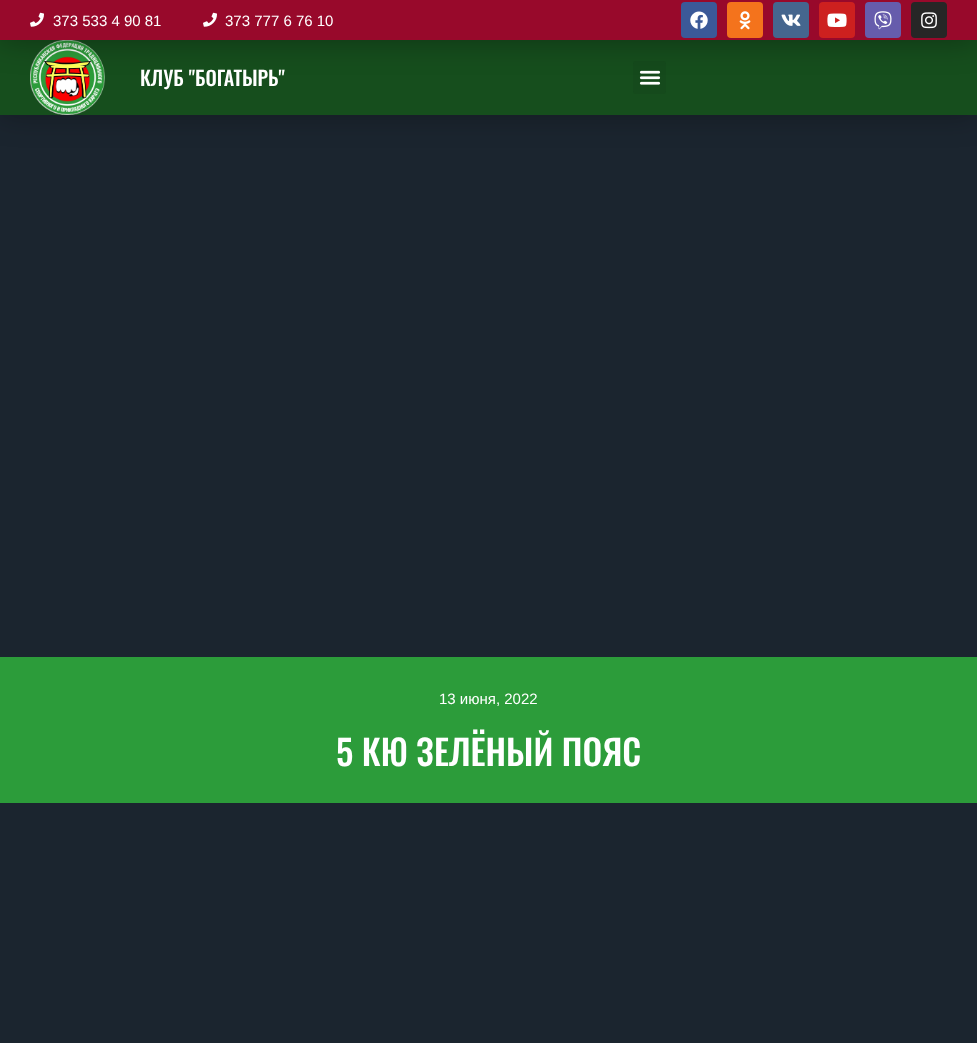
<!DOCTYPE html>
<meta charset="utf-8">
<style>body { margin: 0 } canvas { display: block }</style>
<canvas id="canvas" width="977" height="1043"></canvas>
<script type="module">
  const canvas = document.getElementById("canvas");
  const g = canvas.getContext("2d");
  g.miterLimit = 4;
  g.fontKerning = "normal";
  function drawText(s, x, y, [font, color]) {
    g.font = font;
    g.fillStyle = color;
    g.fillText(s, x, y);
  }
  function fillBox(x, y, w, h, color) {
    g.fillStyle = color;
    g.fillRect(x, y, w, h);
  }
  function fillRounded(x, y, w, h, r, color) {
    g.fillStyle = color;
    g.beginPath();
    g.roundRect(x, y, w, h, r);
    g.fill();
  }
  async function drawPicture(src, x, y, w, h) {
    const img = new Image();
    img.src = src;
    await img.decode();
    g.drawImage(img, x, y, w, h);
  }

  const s1 = ["15px Liberation Sans", "#FFFFFF"];
  const s2 = ["500 20px Oswald", "#FFFFFF"];
  const s3 = ["500 35px Oswald", "#FFFFFF"];

  fillBox(0, 0, 977, 1043, "#1B252F");
  g.fillStyle = "rgba(0, 0, 0, 0.3)";
  g.filter = "blur(15px)";
  g.beginPath();
  g.rect(0, 40, 977, 75);
  g.fill();
  g.filter = "none";
  fillBox(0, 40, 977, 75, "#164E1D");
  await drawPicture("pic8.png", 30, 40, 75, 75);
  fillRounded(633, 61, 33, 33, 3, "#154A1C");
  await drawPicture("pic9.png", 639, 70, 22, 15);
  g.fillStyle = "rgba(0, 0, 0, 0.3)";
  g.filter = "blur(15px)";
  g.beginPath();
  g.rect(0, 2, 977, 40);
  g.fill();
  g.filter = "none";
  fillBox(0, 0, 977, 40, "#98092B");
  await drawPicture("pic1.png", 30, 12, 14, 15);
  drawText("373 533 4 90 81", 53, 26, s1);
  await drawPicture("pic1.png", 203, 12, 14, 15);
  drawText("373 777 6 76 10", 225, 26, s1);
  fillRounded(681, 2, 36, 36, 4, "#3B5998");
  await drawPicture("pic2.png", 690, 11, 18, 18);
  fillRounded(727, 2, 36, 36, 4, "#F4731C");
  await drawPicture("pic3.png", 739, 11, 12, 19);
  fillRounded(773, 2, 36, 36, 4, "#45668E");
  await drawPicture("pic4.png", 781, 14, 20, 12);
  fillRounded(819, 2, 36, 36, 4, "#CD201F");
  await drawPicture("pic5.png", 827, 13, 20, 14);
  fillRounded(865, 2, 36, 36, 4, "#665CAC");
  await drawPicture("pic6.png", 874, 11, 18, 19);
  fillRounded(911, 2, 36, 36, 4, "#262626");
  await drawPicture("pic7.png", 921, 12, 16, 17);
  drawText("КЛУБ \"БОГАТЫРЬ\"", 140, 86, s2);
  fillBox(0, 657, 977, 146, "#2C9C3A");
  drawText("13 июня, 2022", 439, 704, s1);
  drawText("5 КЮ ЗЕЛЁНЫЙ ПОЯС", 336, 766, s3);
</script>
